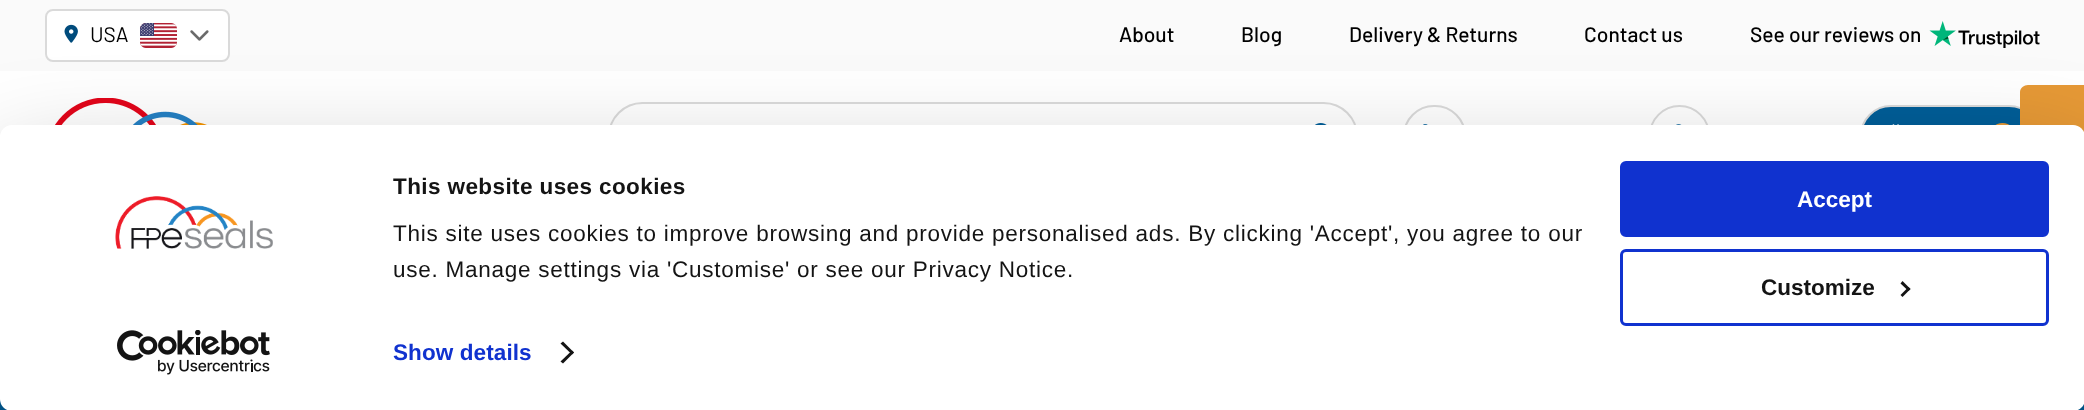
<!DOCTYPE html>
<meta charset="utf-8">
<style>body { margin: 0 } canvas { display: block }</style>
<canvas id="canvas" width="2084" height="410"></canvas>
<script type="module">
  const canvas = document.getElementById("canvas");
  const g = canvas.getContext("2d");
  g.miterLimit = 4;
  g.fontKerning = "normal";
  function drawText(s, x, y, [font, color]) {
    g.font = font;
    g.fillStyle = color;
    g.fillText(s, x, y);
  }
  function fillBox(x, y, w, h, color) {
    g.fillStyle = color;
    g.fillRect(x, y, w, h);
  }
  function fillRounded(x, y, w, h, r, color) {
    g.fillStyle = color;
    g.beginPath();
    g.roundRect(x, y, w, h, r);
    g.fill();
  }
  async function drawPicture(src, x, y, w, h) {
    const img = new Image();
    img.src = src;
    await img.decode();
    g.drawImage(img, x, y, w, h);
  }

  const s1 = ["21px Barlow", "#000000"];
  const s2 = ["500 21px Barlow", "#000000"];
  const s3 = ["bold 22.5px Liberation Sans", "#141414"];
  const s4 = ["22.5px Liberation Sans", "#141414"];
  const s5 = ["bold 22.5px Liberation Sans", "#1032CF"];
  const s6 = ["bold 22.5px Liberation Sans", "#FFFFFF"];

  fillBox(0, 0, 2084, 410, "#FFFFFF");
  fillBox(0, 0, 2084, 71, "#FAFAFA");
  g.fillStyle = "#FFFFFF";
  g.beginPath();
  g.roundRect(46, 10, 183, 51, 7);
  g.fill();
  g.strokeStyle = "#DADADA";
  g.lineWidth = 2;
  g.stroke();
  await drawPicture("pic1.png", 64, 24, 14, 19);
  drawText("USA", 90, 42, s1);
  await drawPicture("pic2.png", 140, 23, 37, 25);
  await drawPicture("pic3.png", 190, 30, 19, 11);
  drawText("About", 1119, 42, s2);
  drawText("Blog", 1241, 42, s2);
  drawText("Delivery & Returns", 1349, 42, s2);
  drawText("Contact us", 1584, 42, s2);
  drawText("See our reviews on", 1750, 42, s2);
  await drawPicture("pic4.png", 1929, 21, 111, 27);
  await drawPicture("pic5.png", 55, 98, 152, 27);
  g.beginPath();
  g.roundRect(609, 103, 748, 67, 33.5);
  g.stroke();
  await drawPicture("pic6.png", 1315, 123, 12, 2);
  g.beginPath();
  g.roundRect(1404, 106, 61, 60, 30);
  g.stroke();
  await drawPicture("pic7.png", 1423, 124, 5, 1);
  g.beginPath();
  g.roundRect(1650, 106, 59, 60, 29.5);
  g.stroke();
  await drawPicture("pic8.png", 1676, 124, 6, 1);
  g.fillStyle = "#005E98";
  g.beginPath();
  g.roundRect(1861, 106, 178, 60, 30);
  g.fill();
  g.stroke();
  await drawPicture("pic9.png", 1892, 124, 7, 1);
  g.fillStyle = "#E69936";
  g.beginPath();
  g.arc(2002.5, 136.5, 13.5, 0, Math.PI * 2);
  g.fill();
  g.beginPath();
  g.moveTo(2020, 319);
  g.lineTo(2020, 92);
  g.bezierCurveTo(2020, 88, 2024, 85, 2028, 85);
  g.lineTo(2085, 85);
  g.lineTo(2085, 326);
  g.lineTo(2028, 326);
  g.bezierCurveTo(2024, 326, 2020, 323, 2020, 319);
  g.closePath();
  g.fill();
  fillBox(0, 399, 2084, 11, "#005E98");
  g.fillStyle = "rgba(0, 0, 0, 0.3)";
  g.filter = "blur(52.5px)";
  g.beginPath();
  g.roundRect(0, 170, 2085, 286, 12);
  g.fill();
  g.filter = "none";
  fillRounded(0, 125, 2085, 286, 12, "#FFFFFF");
  await drawPicture("pic10.png", 115, 196, 158, 53);
  await drawPicture("pic11.png", 117, 330, 153, 45);
  g.letterSpacing = "0.4px";
  drawText("This website uses cookies", 393, 194, s3);
  g.letterSpacing = "0.75px";
  drawText("This site uses cookies to improve browsing and provide personalised ads. By clicking 'Accept', you agree to our", 393, 241, s4);
  drawText("use. Manage settings via 'Customise' or see our Privacy Notice.", 393, 277, s4);
  g.letterSpacing = "0.1px";
  drawText("Show details", 393, 360, s5);
  g.fillStyle = "#141414";
  g.beginPath();
  g.moveTo(563, 341.5);
  g.lineTo(574, 352.5);
  g.lineTo(572, 354.5);
  g.lineTo(560.5, 343.5);
  g.closePath();
  g.fill();
  g.beginPath();
  g.moveTo(572, 350.5);
  g.lineTo(574, 352.5);
  g.lineTo(563, 363.5);
  g.lineTo(560.5, 361.5);
  g.closePath();
  g.fill();
  g.fillStyle = "#1032CF";
  g.beginPath();
  g.roundRect(1621.5, 162.5, 426, 73, 4.5);
  g.fill();
  g.strokeStyle = "#1032CF";
  g.lineWidth = 3;
  g.stroke();
  g.letterSpacing = "0px";
  drawText("Accept", 1797, 207, s6);
  g.beginPath();
  g.roundRect(1621.5, 250.5, 426, 74, 4.5);
  g.stroke();
  drawText("Customize", 1761, 295, s3);
  g.beginPath();
  g.moveTo(1902.5, 281);
  g.lineTo(1910.5, 289);
  g.lineTo(1908.5, 291);
  g.lineTo(1900.5, 283.5);
  g.closePath();
  g.fill();
  g.beginPath();
  g.moveTo(1908.5, 287);
  g.lineTo(1910.5, 289);
  g.lineTo(1902.5, 297);
  g.lineTo(1900.5, 295);
  g.closePath();
  g.fill();
</script>
